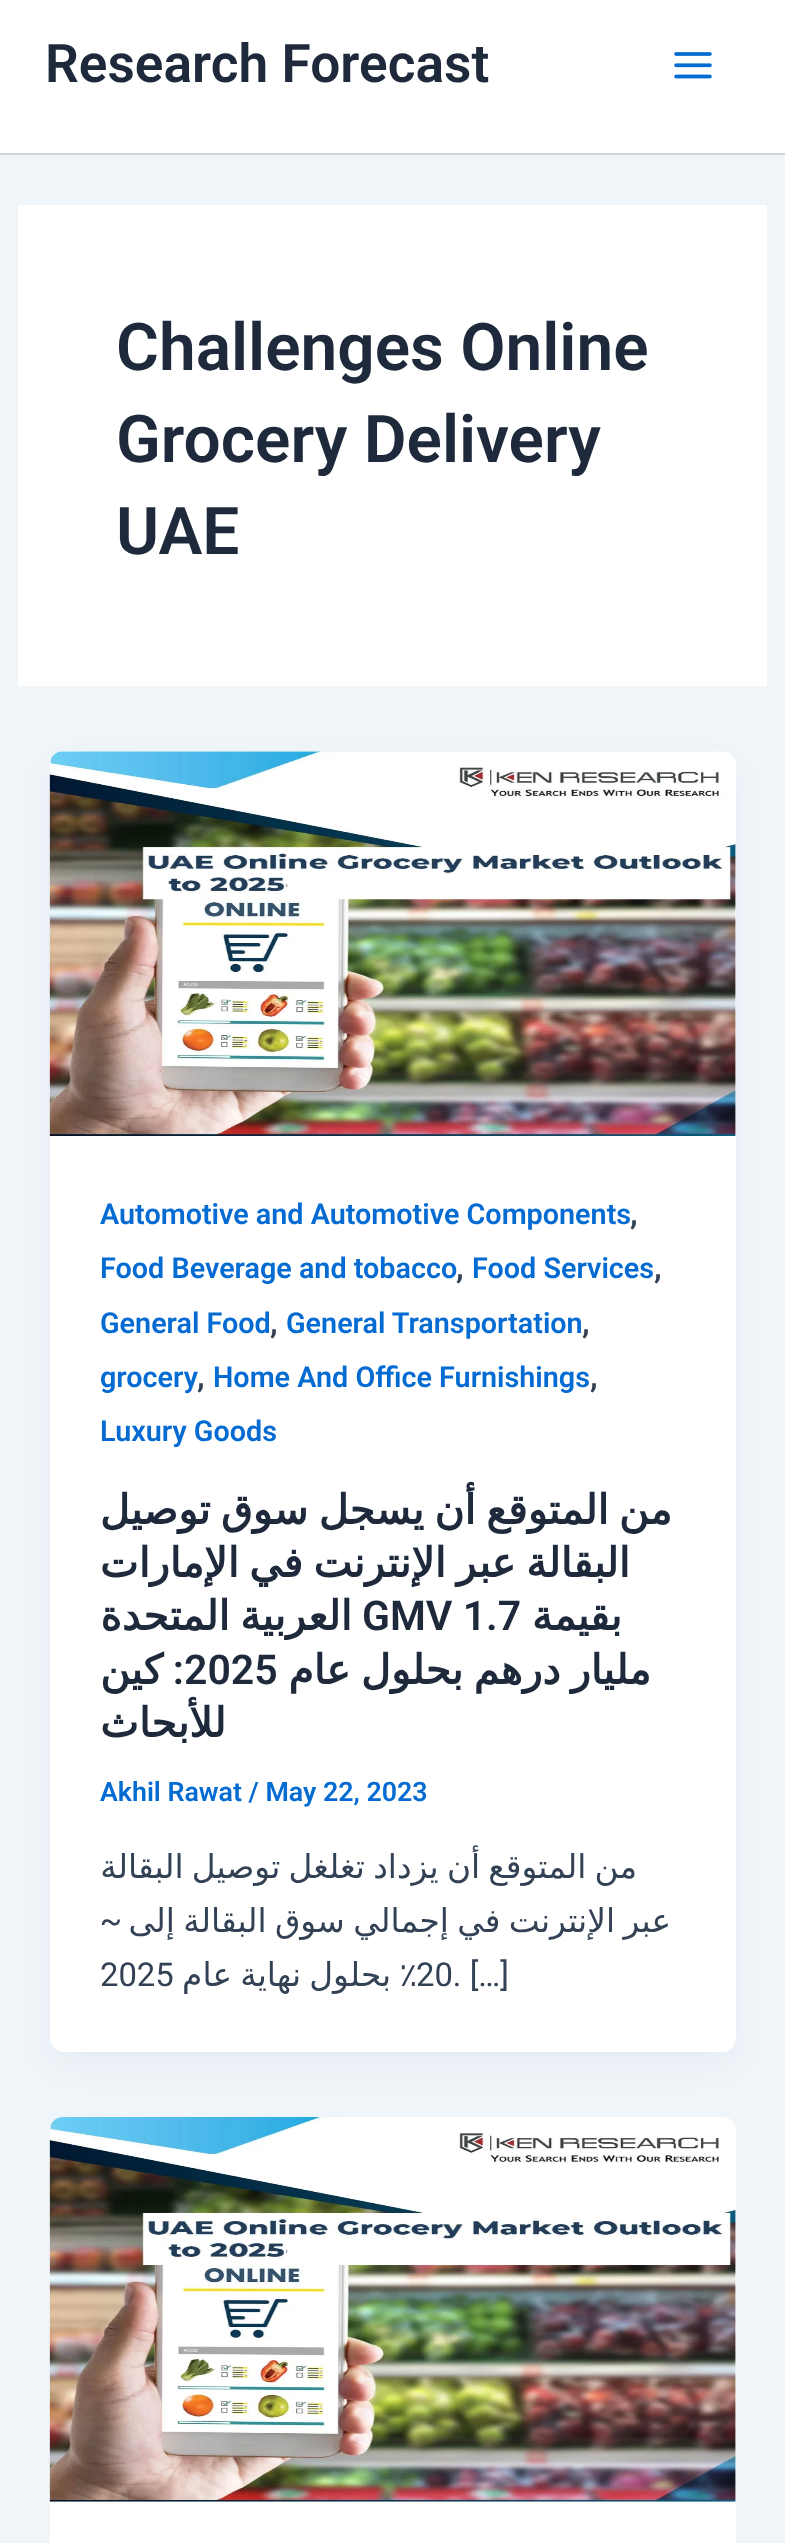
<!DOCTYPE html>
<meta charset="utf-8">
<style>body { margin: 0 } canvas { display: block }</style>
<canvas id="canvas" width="785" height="2543"></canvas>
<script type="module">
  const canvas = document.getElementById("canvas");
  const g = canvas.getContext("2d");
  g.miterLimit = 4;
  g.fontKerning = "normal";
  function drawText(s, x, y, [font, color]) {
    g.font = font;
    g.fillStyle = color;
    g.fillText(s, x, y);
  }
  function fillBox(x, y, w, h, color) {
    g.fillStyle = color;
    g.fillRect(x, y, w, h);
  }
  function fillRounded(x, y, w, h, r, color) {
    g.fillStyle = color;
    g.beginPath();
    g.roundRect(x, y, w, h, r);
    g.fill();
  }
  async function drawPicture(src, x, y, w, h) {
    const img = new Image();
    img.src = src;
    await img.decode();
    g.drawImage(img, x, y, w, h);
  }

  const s1 = ["600 53.25px Roboto", "#1E293B"];
  const s2 = ["600 65.75px Roboto", "#1E293B"];
  const s3 = ["600 28.75px Roboto", "#046BD2"];
  const s4 = ["600 32.8px Roboto", "#334155"];
  const s5 = ["bold 41px DejaVu Sans", "#1E293B"];
  const s6 = ["600 41px Roboto", "#1E293B"];
  const s7 = ["600 26.75px Roboto", "#046BD2"];
  const s8 = ["32.8px DejaVu Sans", "#334155"];
  const s9 = ["32.8px Roboto", "#334155"];

  fillBox(0, 0, 785, 2543, "#F0F5FA");
  fillBox(0, 0, 785, 153, "#FFFFFF");
  fillBox(0, 153, 785, 2, "#D1D5DB");
  drawText("Research Forecast", 45, 82, s1);
  await drawPicture("pic1.png", 674, 52, 38, 27);
  fillBox(18, 205, 749, 481, "#FFFFFF");
  drawText("Challenges Online", 116, 370, s2);
  drawText("Grocery Delivery", 116, 462, s2);
  drawText("UAE", 116, 554, s2);
  g.fillStyle = "rgba(16, 24, 40, 0.05)";
  g.filter = "blur(17px)";
  g.beginPath();
  g.roundRect(54, 770, 677, 1291, 9);
  g.fill();
  g.filter = "none";
  fillRounded(50, 752, 686, 1300, 14, "#FFFFFF");
  await drawPicture("pic2.png", 49, 751, 687, 385);
  drawText("Automotive and Automotive Components", 100, 1224, s3);
  drawText(",", 630, 1224, s4);
  drawText("Food Beverage and tobacco", 100, 1278, s3);
  drawText(",", 456, 1278, s4);
  drawText("Food Services", 472, 1278, s3);
  drawText(",", 654, 1278, s4);
  drawText("General Food", 100, 1333, s3);
  drawText(",", 270, 1333, s4);
  drawText("General Transportation", 286, 1333, s3);
  drawText(",", 582, 1333, s4);
  drawText("grocery", 100, 1387, s3);
  drawText(",", 197, 1387, s4);
  drawText("Home And Office Furnishings", 213, 1387, s3);
  drawText(",", 590, 1387, s4);
  drawText("Luxury Goods", 100, 1441, s3);
  g.wordSpacing = "-2.75px";
  g.direction = "rtl";
  drawText("من المتوقع أن يسجل سوق توصيل", 672, 1524, s5);
  drawText("البقالة عبر الإنترنت في الإمارات", 630, 1577, s5);
  drawText("العربية المتحدة", 352, 1630, s5);
  g.wordSpacing = "0px";
  g.direction = "ltr";
  drawText("GMV 1.7", 362, 1630, s6);
  g.direction = "rtl";
  drawText("بقيمة", 622, 1630, s5);
  drawText("كين", 163, 1684, s5);
  drawText(":", 184, 1684, s6);
  g.direction = "ltr";
  drawText("2025", 184, 1684, s6);
  g.wordSpacing = "-2.75px";
  g.direction = "rtl";
  drawText("مليار درهم بحلول عام", 651, 1684, s5);
  g.wordSpacing = "0px";
  drawText("للأبحاث", 226, 1737, s5);
  g.direction = "ltr";
  drawText("Akhil Rawat / May 22, 2023", 100, 1801, s7);
  g.wordSpacing = "-2.25px";
  g.direction = "rtl";
  drawText("من المتوقع أن يزداد تغلغل توصيل البقالة", 637, 1878, s8);
  g.wordSpacing = "0px";
  drawText("~", 122, 1932, s9);
  g.wordSpacing = "-2px";
  drawText("عبر الإنترنت في إجمالي سوق البقالة إلى", 671, 1932, s8);
  g.wordSpacing = "0px";
  g.direction = "ltr";
  drawText("2025", 100, 1986, s9);
  g.wordSpacing = "-2.25px";
  g.direction = "rtl";
  drawText("٪ بحلول نهاية عام", 417, 1986, s8);
  g.wordSpacing = "0px";
  g.direction = "ltr";
  drawText("20. […]", 416, 1986, s9);
  fillRounded(50, 2117, 686, 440, 14, "#FFFFFF");
  await drawPicture("pic3.png", 49, 2117, 687, 385);
</script>
